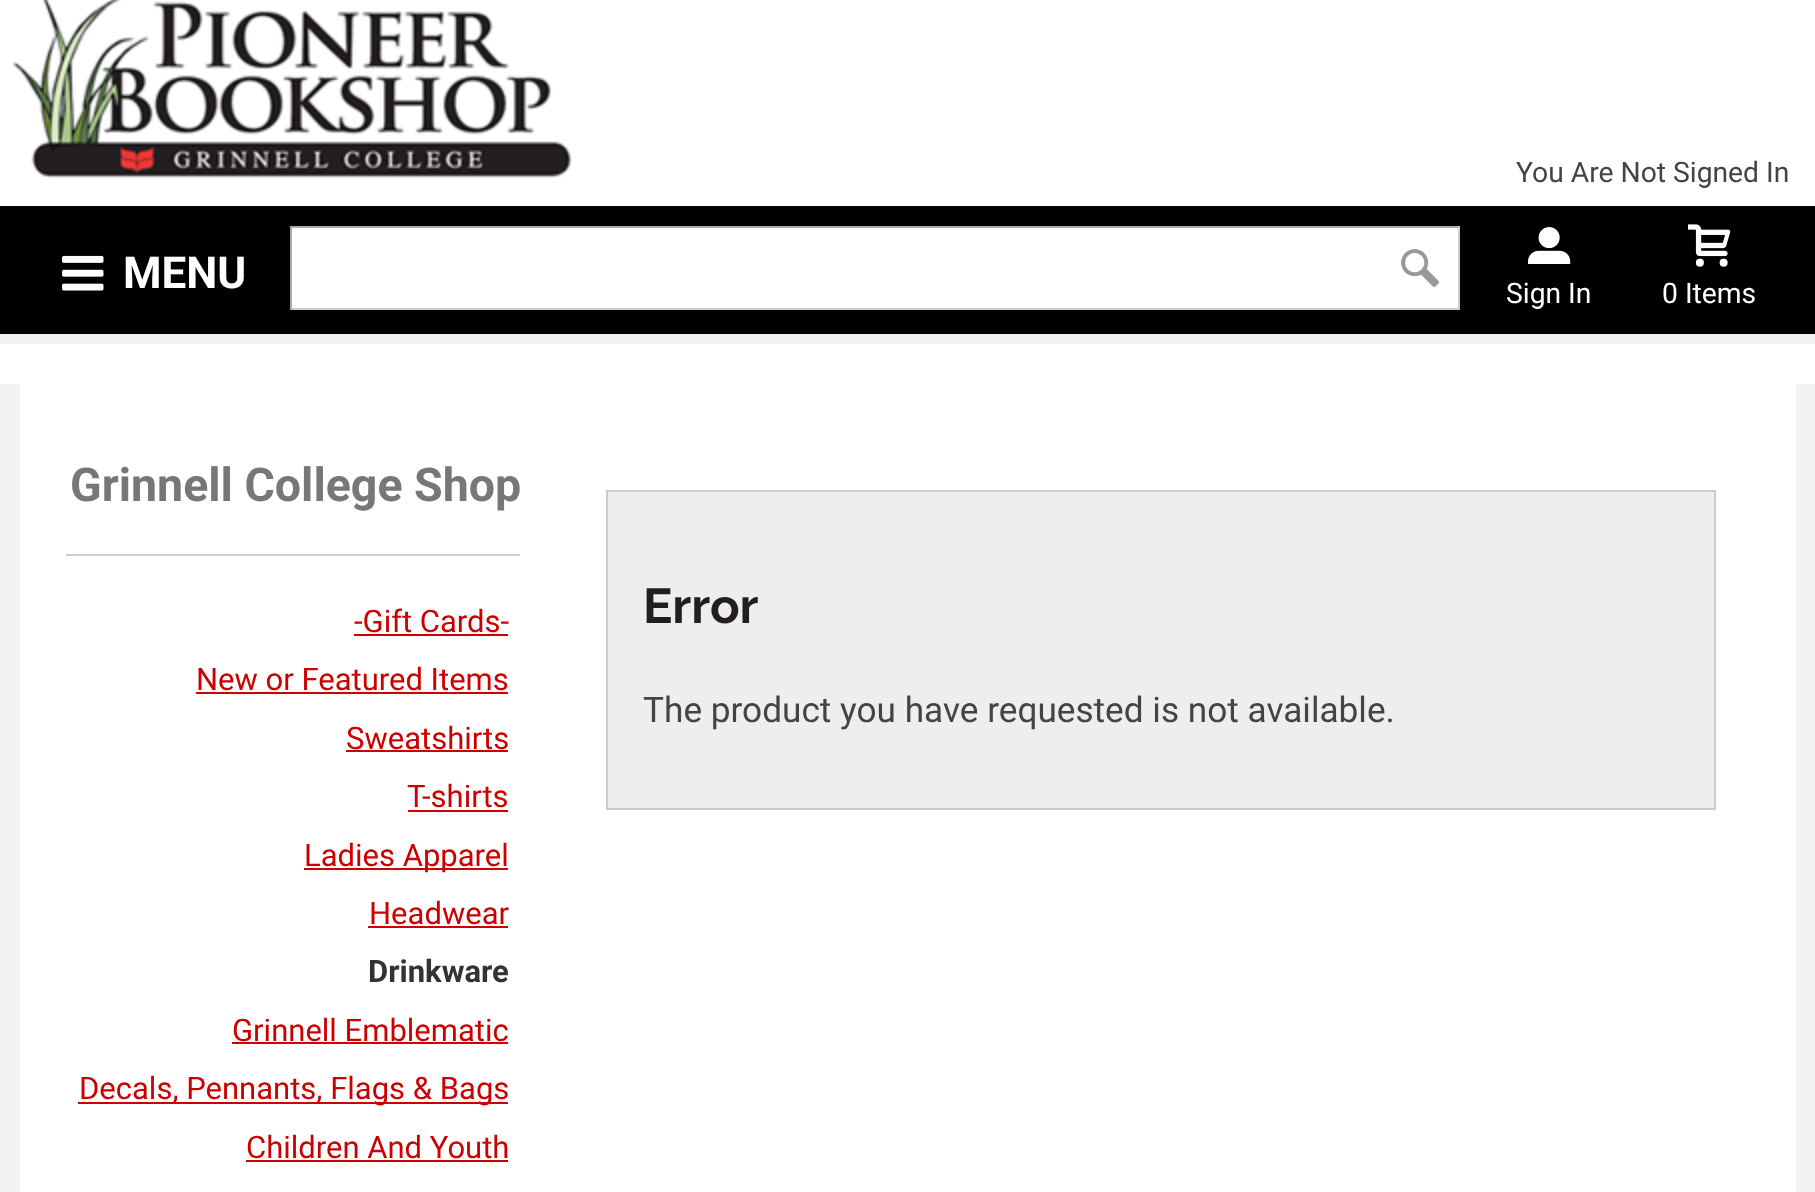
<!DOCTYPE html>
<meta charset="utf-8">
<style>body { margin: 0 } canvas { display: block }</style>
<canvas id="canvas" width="1815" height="1192"></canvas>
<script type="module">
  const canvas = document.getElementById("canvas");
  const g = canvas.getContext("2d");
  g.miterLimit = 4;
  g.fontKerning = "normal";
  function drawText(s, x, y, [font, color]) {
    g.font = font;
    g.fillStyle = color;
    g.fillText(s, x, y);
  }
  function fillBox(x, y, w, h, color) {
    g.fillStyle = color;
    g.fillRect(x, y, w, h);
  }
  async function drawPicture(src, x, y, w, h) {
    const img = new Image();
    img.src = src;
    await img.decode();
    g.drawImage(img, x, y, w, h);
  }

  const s1 = ["bold 44px Roboto", "#FFFFFF"];
  const s2 = ["28.25px Roboto", "#444444"];
  const s3 = ["28.25px Roboto", "#FFFFFF"];
  const s4 = ["bold 46.5px Roboto", "#777777"];
  const s5 = ["31px Roboto", "#CC0001"];
  const s6 = ["bold 31px Roboto", "#333333"];
  const s7 = ["bold 49px Raleway", "#231F20"];
  const s8 = ["35.2px Roboto", "#444444"];

  fillBox(0, 0, 1815, 1192, "#FFFFFF");
  await drawPicture("pic1.png", 12, 0, 561, 179);
  fillBox(0, 206, 1815, 128, "#000000");
  await drawPicture("pic2.png", 62, 255, 42, 36);
  drawText("MENU", 123, 288, s1);
  fillBox(292, 228, 1166, 80, "#FFFFFF");
  fillBox(290, 226, 1170, 2, "#AAAAAA");
  fillBox(1458, 226, 2, 84, "#CCCCCC");
  fillBox(290, 308, 1170, 2, "#CCCCCC");
  fillBox(290, 226, 2, 84, "#AAAAAA");
  await drawPicture("pic3.png", 1401, 248, 39, 39);
  drawText("You Are Not Signed In", 1516, 182, s2);
  await drawPicture("pic4.png", 1528, 227, 43, 37);
  drawText("Sign In", 1506, 303, s3);
  await drawPicture("pic5.png", 1688, 224, 43, 43);
  drawText("0 Items", 1662, 303, s3);
  fillBox(0, 334, 1815, 10, "#F2F2F2");
  fillBox(1796, 384, 19, 808, "#F2F2F2");
  fillBox(0, 384, 20, 808, "#F2F2F2");
  drawText("Grinnell College Shop", 70, 501, s4);
  fillBox(66, 554, 454, 2, "#CCCCCC");
  drawText("-Gift Cards-", 354, 632, s5);
  fillBox(354, 634, 154, 2, "#CC0001");
  drawText("New or Featured Items", 196, 690, s5);
  fillBox(196, 692, 312, 2, "#CC0001");
  drawText("Sweatshirts", 346, 749, s5);
  fillBox(346, 750, 162, 2, "#CC0001");
  drawText("T-shirts", 407, 807, s5);
  fillBox(408, 810, 100, 2, "#CC0001");
  fillBox(304, 868, 204, 2, "#CC0001");
  drawText("Ladies Apparel", 304, 866, s5);
  drawText("Headwear", 369, 924, s5);
  fillBox(368, 926, 140, 2, "#CC0001");
  drawText("Drinkware", 368, 982, s6);
  drawText("Grinnell Emblematic", 232, 1041, s5);
  fillBox(232, 1042, 276, 2, "#CC0001");
  fillBox(78, 1102, 430, 2, "#CC0001");
  drawText("Decals, Pennants, Flags & Bags", 79, 1099, s5);
  drawText("Children And Youth", 246, 1158, s5);
  fillBox(246, 1160, 262, 2, "#CC0001");
  g.fillStyle = "#EEEEEE";
  g.beginPath();
  g.rect(607, 491, 1108, 318);
  g.fill();
  g.strokeStyle = "#CCCCCC";
  g.lineWidth = 2;
  g.stroke();
  drawText("Error", 643, 623, s7);
  drawText("The product you have requested is not available.", 643, 722, s8);
</script>
